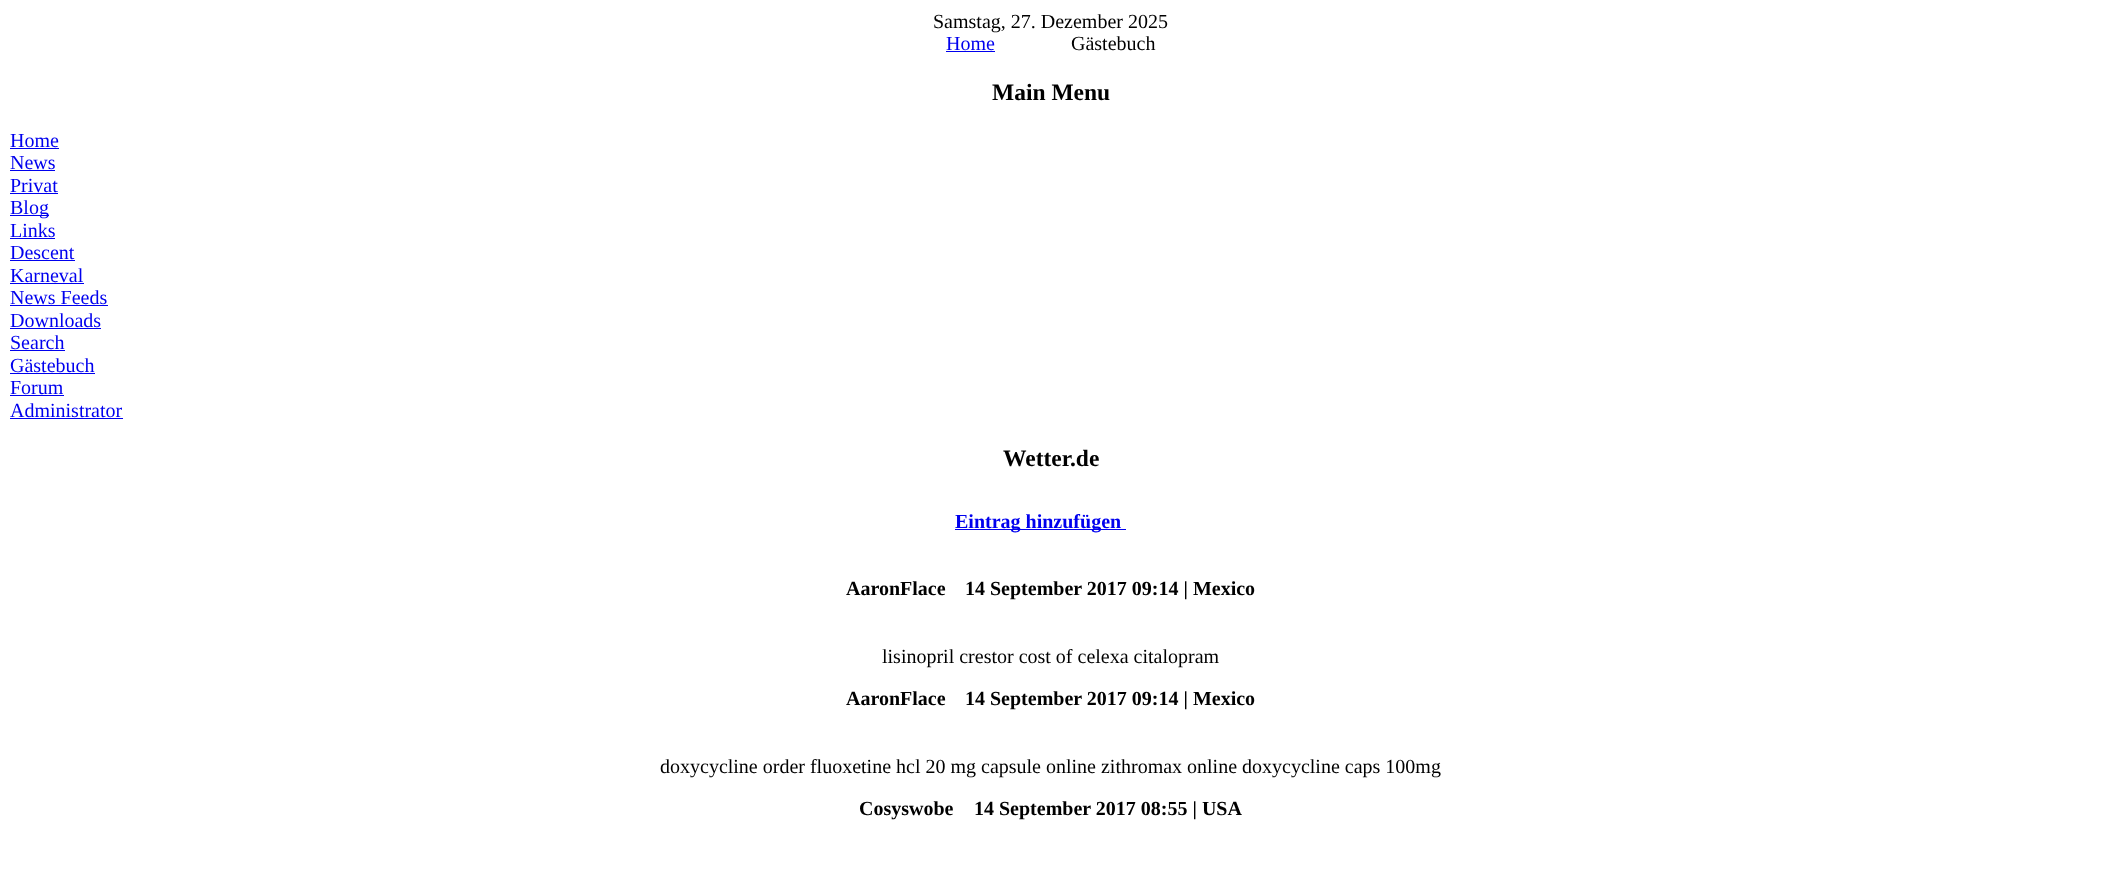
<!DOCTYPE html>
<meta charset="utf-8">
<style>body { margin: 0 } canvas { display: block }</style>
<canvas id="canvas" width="2101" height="876"></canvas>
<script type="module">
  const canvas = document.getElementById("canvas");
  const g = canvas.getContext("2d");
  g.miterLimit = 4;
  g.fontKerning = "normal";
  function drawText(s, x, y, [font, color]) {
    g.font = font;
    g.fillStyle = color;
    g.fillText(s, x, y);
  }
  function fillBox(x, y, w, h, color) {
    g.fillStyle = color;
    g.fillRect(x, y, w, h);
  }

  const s1 = ["20px Liberation Serif", "#000000"];
  const s2 = ["20px Liberation Serif", "#0000EE"];
  const s3 = ["bold 23.5px Liberation Serif", "#000000"];
  const s4 = ["bold 20px Liberation Serif", "#0000EE"];
  const s5 = ["bold 20px Liberation Serif", "#000000"];

  fillBox(0, 0, 2101, 876, "#FFFFFF");
  drawText("Samstag, 27. Dezember 2025", 933, 28, s1);
  drawText("Home", 946, 50, s2);
  fillBox(946, 51, 49, 1, "#0000EE");
  drawText("Gästebuch", 1071, 50, s1);
  drawText("Main Menu", 992, 100, s3);
  drawText("Home", 10, 147, s2);
  fillBox(10, 148, 49, 1, "#0000EE");
  drawText("News", 10, 169, s2);
  fillBox(10, 170, 45, 1, "#0000EE");
  drawText("Privat", 10, 192, s2);
  fillBox(10, 193, 48, 1, "#0000EE");
  fillBox(10, 215, 39, 1, "#0000EE");
  drawText("Blog", 10, 214, s2);
  drawText("Links", 10, 237, s2);
  fillBox(10, 238, 45, 1, "#0000EE");
  drawText("Descent", 10, 259, s2);
  fillBox(10, 260, 65, 1, "#0000EE");
  drawText("Karneval", 10, 282, s2);
  fillBox(10, 283, 74, 1, "#0000EE");
  drawText("News Feeds", 10, 304, s2);
  fillBox(10, 305, 98, 1, "#0000EE");
  drawText("Downloads", 10, 327, s2);
  fillBox(10, 328, 91, 1, "#0000EE");
  drawText("Search", 10, 349, s2);
  fillBox(10, 350, 55, 1, "#0000EE");
  drawText("Gästebuch", 10, 372, s2);
  fillBox(10, 373, 85, 1, "#0000EE");
  drawText("Forum", 10, 394, s2);
  fillBox(10, 395, 54, 1, "#0000EE");
  drawText("Administrator", 10, 417, s2);
  fillBox(10, 418, 113, 1, "#0000EE");
  drawText("Wetter.de", 1003, 466, s3);
  fillBox(955, 529, 171, 1, "#0000EE");
  drawText("Eintrag hinzufügen", 955, 528, s4);
  drawText("AaronFlace", 846, 595, s5);
  drawText("14 September 2017 09:14 | Mexico", 965, 595, s5);
  drawText("lisinopril crestor cost of celexa citalopram", 882, 663, s1);
  drawText("AaronFlace", 846, 705, s5);
  drawText("14 September 2017 09:14 | Mexico", 965, 705, s5);
  drawText("doxycycline order fluoxetine hcl 20 mg capsule online zithromax online doxycycline caps 100mg", 660, 773, s1);
  drawText("Cosyswobe", 859, 815, s5);
  drawText("14 September 2017 08:55 | USA", 974, 815, s5);
</script>
